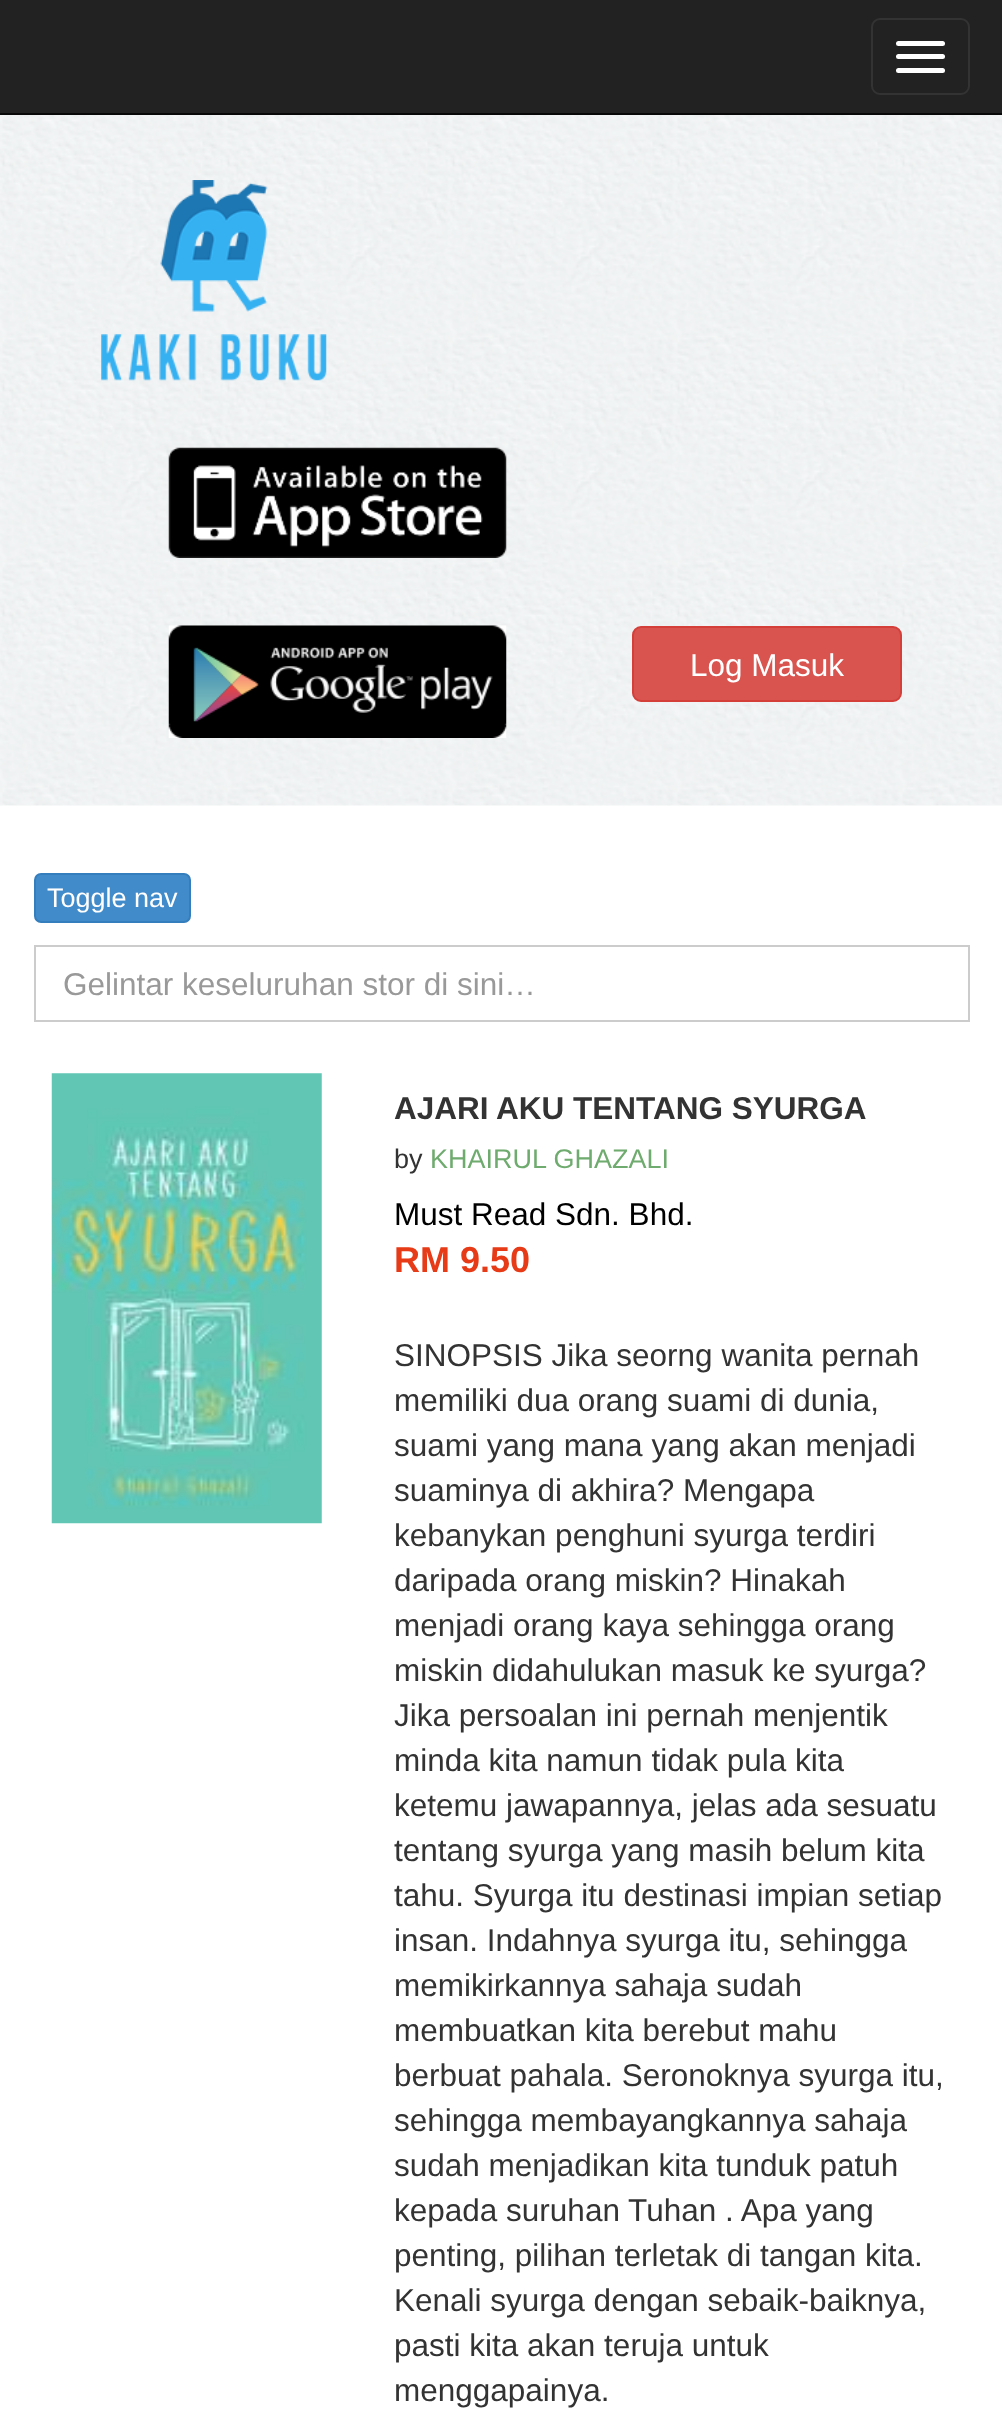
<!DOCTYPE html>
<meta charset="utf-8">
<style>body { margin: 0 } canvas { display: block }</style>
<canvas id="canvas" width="1002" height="2422"></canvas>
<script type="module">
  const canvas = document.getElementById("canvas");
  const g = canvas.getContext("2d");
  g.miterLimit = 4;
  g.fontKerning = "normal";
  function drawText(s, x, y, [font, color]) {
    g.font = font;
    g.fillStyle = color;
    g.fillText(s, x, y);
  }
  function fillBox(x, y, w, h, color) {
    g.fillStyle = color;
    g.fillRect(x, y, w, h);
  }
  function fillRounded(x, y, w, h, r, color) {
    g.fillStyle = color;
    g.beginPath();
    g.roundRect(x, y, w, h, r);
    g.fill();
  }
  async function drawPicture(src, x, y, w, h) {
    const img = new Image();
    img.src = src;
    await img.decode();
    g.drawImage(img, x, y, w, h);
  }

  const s1 = ["31.5px Liberation Sans", "#FFFFFF"];
  const s2 = ["27px Liberation Sans", "#FFFFFF"];
  const s3 = ["31.5px Liberation Sans", "#999999"];
  const s4 = ["bold 31.5px Liberation Sans", "#333333"];
  const s5 = ["27px Liberation Sans", "#333333"];
  const s6 = ["27px Liberation Sans", "#6FAB6E"];
  const s7 = ["31.5px Liberation Sans", "#000000"];
  const s8 = ["bold 36px Liberation Sans", "#E73A17"];
  const s9 = ["31.5px Liberation Sans", "#333333"];

  fillBox(0, 0, 1002, 2422, "#FFFFFF");
  fillBox(0, 0, 1002, 113, "#222222");
  fillBox(0, 113, 1002, 2, "#080808");
  g.beginPath();
  g.roundRect(872, 19, 97, 75, 8);
  g.strokeStyle = "#333333";
  g.lineWidth = 2;
  g.stroke();
  fillRounded(896, 41, 49, 5, 2.5, "#FFFFFF");
  fillRounded(896, 54, 49, 5, 2.5, "#FFFFFF");
  fillRounded(896, 68, 49, 5, 2.5, "#FFFFFF");
  await drawPicture("pic1.png", 0, 115, 1002, 691);
  await drawPicture("pic2.png", 101, 180, 226, 201);
  await drawPicture("pic3.png", 168, 447, 339, 111);
  await drawPicture("pic4.png", 168, 625, 339, 113);
  g.fillStyle = "#D9534F";
  g.beginPath();
  g.roundRect(633, 627, 268, 74, 8);
  g.fill();
  g.strokeStyle = "#D43F3A";
  g.stroke();
  drawText("Log Masuk", 690, 676, s1);
  g.fillStyle = "#428BCA";
  g.beginPath();
  g.roundRect(35, 874, 155, 48, 6);
  g.fill();
  g.strokeStyle = "#357EBD";
  g.stroke();
  drawText("Toggle nav", 47, 907, s2);
  g.strokeStyle = "#CCCCCC";
  g.strokeRect(35, 946, 934, 75);
  drawText("Gelintar keseluruhan stor di sini…", 63, 995, s3);
  await drawPicture("pic5.png", 51, 1073, 271, 451);
  drawText("AJARI AKU TENTANG SYURGA", 394, 1119, s4);
  drawText("by", 394, 1168, s5);
  drawText("KHAIRUL GHAZALI", 430, 1168, s6);
  drawText("Must Read Sdn. Bhd.", 394, 1225, s7);
  drawText("RM 9.50", 394, 1272, s8);
  drawText("SINOPSIS Jika seorng wanita pernah", 394, 1366, s9);
  drawText("memiliki dua orang suami di dunia,", 394, 1411, s9);
  drawText("suami yang mana yang akan menjadi", 394, 1456, s9);
  drawText("suaminya di akhira? Mengapa", 394, 1501, s9);
  drawText("kebanykan penghuni syurga terdiri", 394, 1546, s9);
  drawText("daripada orang miskin? Hinakah", 394, 1591, s9);
  drawText("menjadi orang kaya sehingga orang", 394, 1636, s9);
  drawText("miskin didahulukan masuk ke syurga?", 394, 1681, s9);
  drawText("Jika persoalan ini pernah menjentik", 394, 1726, s9);
  drawText("minda kita namun tidak pula kita", 394, 1771, s9);
  drawText("ketemu jawapannya, jelas ada sesuatu", 394, 1816, s9);
  drawText("tentang syurga yang masih belum kita", 394, 1861, s9);
  drawText("tahu. Syurga itu destinasi impian setiap", 394, 1906, s9);
  drawText("insan. Indahnya syurga itu, sehingga", 394, 1951, s9);
  drawText("memikirkannya sahaja sudah", 394, 1996, s9);
  drawText("membuatkan kita berebut mahu", 394, 2041, s9);
  drawText("berbuat pahala. Seronoknya syurga itu,", 394, 2086, s9);
  drawText("sehingga membayangkannya sahaja", 394, 2131, s9);
  drawText("sudah menjadikan kita tunduk patuh", 394, 2176, s9);
  drawText("kepada suruhan Tuhan . Apa yang", 394, 2221, s9);
  drawText("penting, pilihan terletak di tangan kita.", 394, 2266, s9);
  drawText("Kenali syurga dengan sebaik-baiknya,", 394, 2311, s9);
  drawText("pasti kita akan teruja untuk", 394, 2356, s9);
  drawText("menggapainya.", 394, 2401, s9);
</script>
